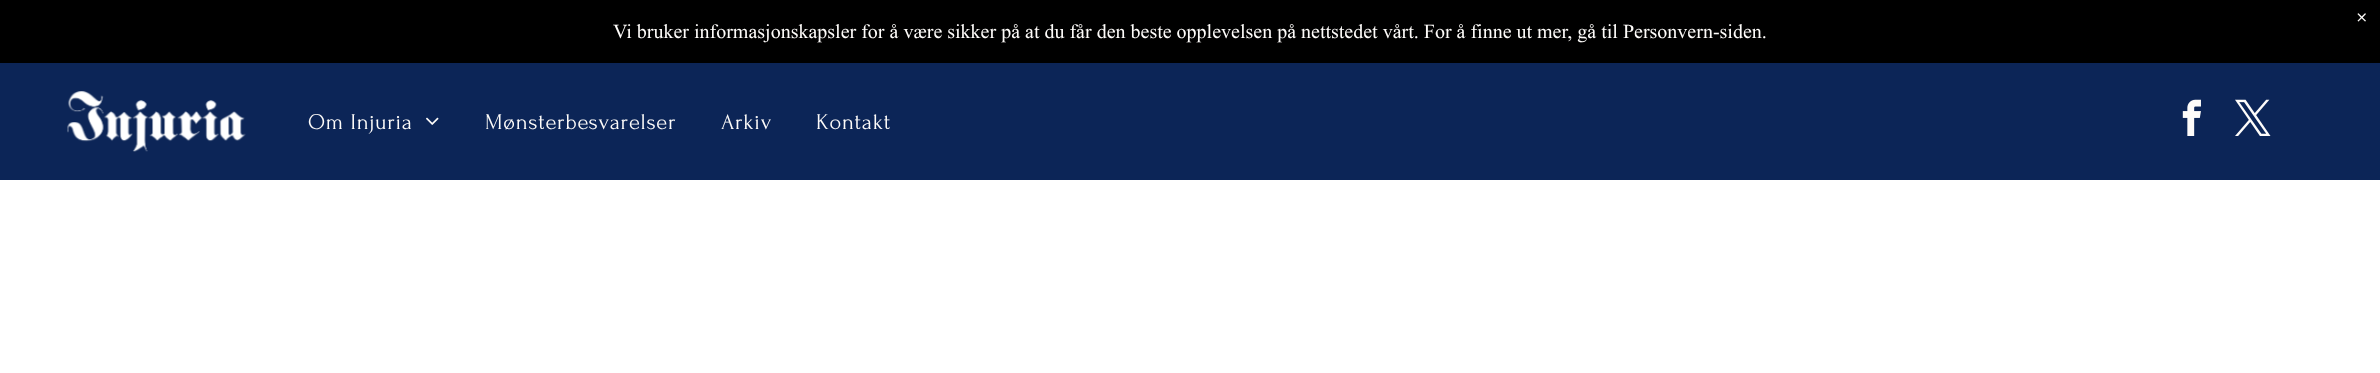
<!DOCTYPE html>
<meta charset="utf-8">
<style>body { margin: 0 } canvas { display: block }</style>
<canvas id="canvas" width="2380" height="373"></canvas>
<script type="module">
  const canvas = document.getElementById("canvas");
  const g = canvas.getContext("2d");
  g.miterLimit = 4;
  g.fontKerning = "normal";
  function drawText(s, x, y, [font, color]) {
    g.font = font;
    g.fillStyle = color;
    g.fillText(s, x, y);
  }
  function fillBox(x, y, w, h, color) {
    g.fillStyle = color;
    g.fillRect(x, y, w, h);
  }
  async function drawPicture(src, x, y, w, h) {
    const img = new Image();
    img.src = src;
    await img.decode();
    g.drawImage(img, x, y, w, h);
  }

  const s1 = ["bold 20px Times New Roman", "#FEFCFA"];
  const s2 = ["20px Times New Roman", "#FEFCFA"];
  const s3 = ["22.5px Forum", "#FEFCFA"];

  fillBox(0, 0, 2380, 373, "#FFFFFF");
  fillBox(0, 0, 2380, 63, "#000000");
  drawText("×", 2356, 24, s1);
  drawText("Vi bruker informasjonskapsler for å være sikker på at du får den beste opplevelsen på nettstedet vårt. For å finne ut mer, gå til Personvern-siden.", 613, 38, s2);
  fillBox(0, 63, 2380, 117, "#0C2557");
  await drawPicture("pic1.png", 67, 91, 179, 61);
  g.letterSpacing = "0.7px";
  drawText("Om Injuria", 308, 129, s3);
  await drawPicture("pic2.png", 426, 117, 13, 8);
  drawText("Mønsterbesvarelser", 485, 129, s3);
  drawText("Arkiv", 721, 129, s3);
  drawText("Kontakt", 816, 129, s3);
  await drawPicture("pic3.png", 2182, 99, 19, 37);
  await drawPicture("pic4.png", 2235, 99, 36, 37);
</script>
